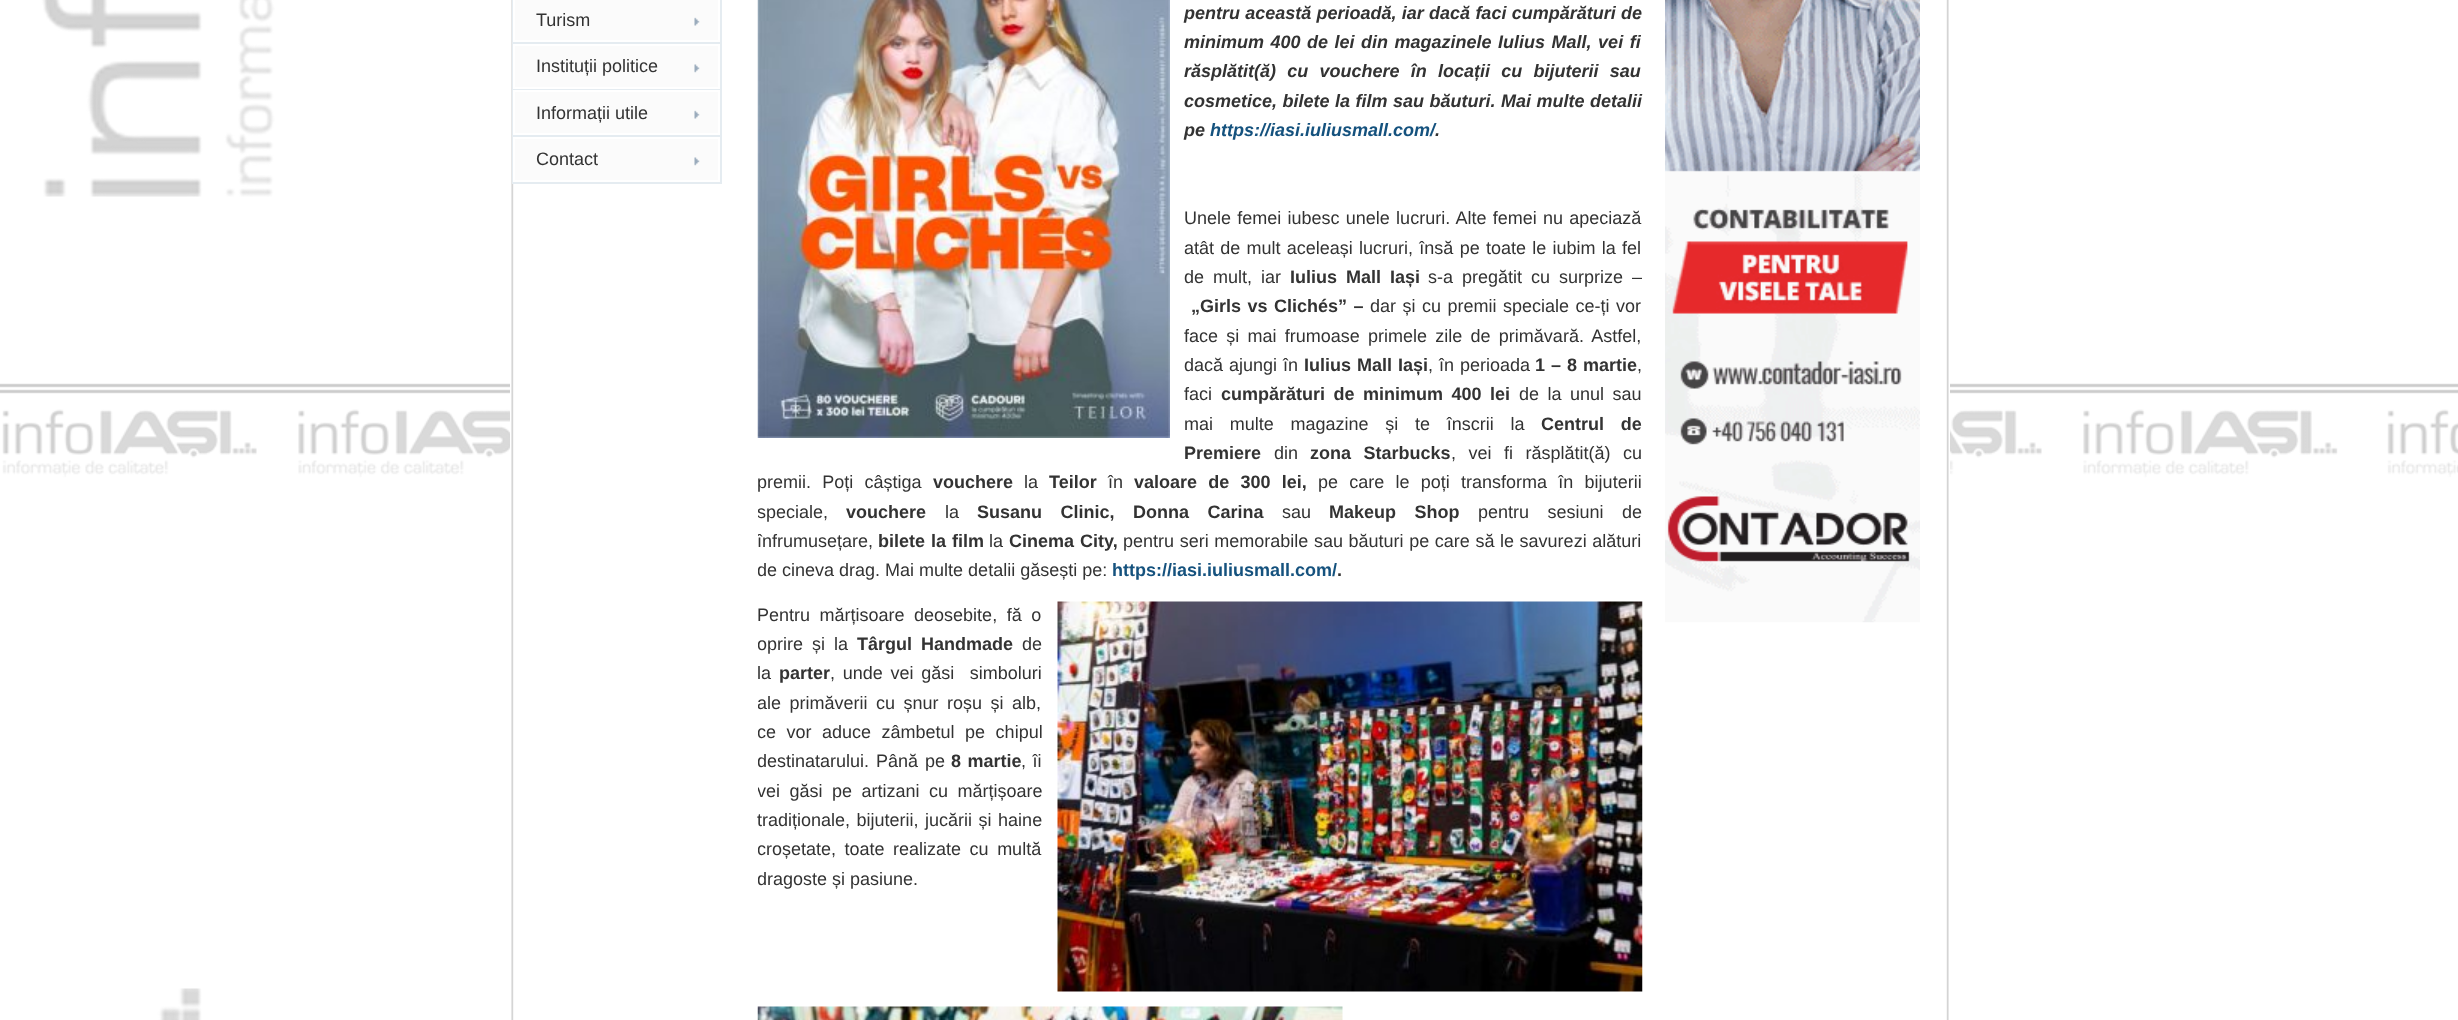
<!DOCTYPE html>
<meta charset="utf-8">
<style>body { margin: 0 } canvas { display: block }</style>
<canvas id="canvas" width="2458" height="1020"></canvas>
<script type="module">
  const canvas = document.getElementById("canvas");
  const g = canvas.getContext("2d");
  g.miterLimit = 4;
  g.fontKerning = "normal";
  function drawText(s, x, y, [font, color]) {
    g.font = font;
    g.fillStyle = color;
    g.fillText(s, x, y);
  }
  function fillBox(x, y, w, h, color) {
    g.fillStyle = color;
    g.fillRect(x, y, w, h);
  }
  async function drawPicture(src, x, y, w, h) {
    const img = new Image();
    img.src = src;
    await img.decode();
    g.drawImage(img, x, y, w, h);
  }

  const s1 = ["18px Liberation Sans", "#333333"];
  const s2 = ["italic bold 18px Liberation Sans", "#333333"];
  const s3 = ["italic bold 18px Liberation Sans", "#15527E"];
  const s4 = ["bold 18px Liberation Sans", "#333333"];
  const s5 = ["bold 18px Liberation Sans", "#15527E"];

  fillBox(0, 0, 2458, 1020, "#FFFFFF");
  await drawPicture("pic1.png", 0, 0, 2458, 1020);
  fillBox(510, 383, 1440, 94, "#FFFFFF");
  await drawPicture("pic2.png", 511, 0, 1438, 1020);
  fillBox(720, 0, 2, 183, "#E5ECF1");
  fillBox(512, 182, 210, 2, "#E5ECF1");
  fillBox(512, 0, 2, 183, "#E5ECF1");
  fillBox(515, 0, 203, 40, "#FBFBFB");
  await drawPicture("pic3.png", 694, 17, 6, 9);
  g.strokeStyle = "#FFFFFF";
  g.lineWidth = 2;
  g.strokeRect(514, -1, 205, 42);
  drawText("Turism", 536, 26, s1);
  fillBox(513, 42, 207, 2, "#E5ECF1");
  fillBox(515, 46, 203, 41, "#FBFBFB");
  await drawPicture("pic4.png", 694, 64, 6, 9);
  g.strokeRect(514, 45, 205, 43);
  drawText("Instituții politice", 536, 72, s1);
  fillBox(513, 89, 207, 1, "#E5ECF1");
  fillBox(515, 92, 203, 41, "#FBFBFB");
  await drawPicture("pic3.png", 694, 110, 6, 9);
  g.strokeRect(514, 91, 205, 43);
  drawText("Informații utile", 536, 119, s1);
  fillBox(513, 135, 207, 2, "#E5ECF1");
  fillBox(515, 139, 203, 41, "#FBFBFB");
  await drawPicture("pic4.png", 694, 157, 6, 9);
  g.strokeRect(514, 138, 205, 43);
  drawText("Contact", 536, 165, s1);
  await drawPicture("pic5.png", 757, 0, 413, 438);
  g.wordSpacing = "0.25px";
  drawText("pentru această perioadă, iar dacă faci cumpărături de", 1184, 19, s2);
  g.wordSpacing = "1.5px";
  drawText("minimum 400 de lei din magazinele Iulius Mall, vei fi", 1184, 48, s2);
  g.wordSpacing = "6.25px";
  drawText("răsplătit(ă) cu vouchere în locații cu bijuterii sau", 1184, 77, s2);
  g.wordSpacing = "0.5px";
  drawText("cosmetice, bilete la film sau băuturi. Mai multe detalii", 1184, 107, s2);
  g.wordSpacing = "0px";
  drawText("pe", 1184, 136, s2);
  drawText("https://iasi.iuliusmall.com/", 1210, 136, s3);
  drawText(".", 1435, 136, s2);
  g.wordSpacing = "1.25px";
  drawText("Unele femei iubesc unele lucruri. Alte femei nu apeciază", 1184, 224, s1);
  drawText("atât de mult aceleași lucruri, însă pe toate le iubim la fel", 1184, 254, s1);
  g.wordSpacing = "4px";
  drawText("de mult, iar", 1184, 283, s1);
  drawText("Iulius Mall Iași", 1290, 283, s4);
  drawText("s-a pregătit cu surprize –", 1428, 283, s1);
  g.wordSpacing = "1.5px";
  drawText("„Girls vs Clichés” –", 1191, 312, s4);
  drawText("dar și cu premii speciale ce-ți vor", 1370, 312, s1);
  g.wordSpacing = "3.25px";
  drawText("face și mai frumoase primele zile de primăvară. Astfel,", 1184, 342, s1);
  g.wordSpacing = "1px";
  drawText("dacă ajungi în", 1184, 371, s1);
  drawText("Iulius Mall Iași", 1304, 371, s4);
  drawText(", în perioada", 1428, 371, s1);
  drawText("1 – 8 martie", 1535, 371, s4);
  g.wordSpacing = "0px";
  drawText(",", 1637, 371, s1);
  drawText("faci", 1184, 400, s1);
  g.wordSpacing = "3.5px";
  drawText("cumpărături de minimum 400 lei", 1221, 400, s4);
  drawText("de la unul sau", 1519, 400, s1);
  g.wordSpacing = "11.75px";
  drawText("mai multe magazine și te înscrii la", 1184, 430, s1);
  drawText("Centrul de", 1541, 430, s4);
  g.wordSpacing = "0px";
  drawText("Premiere", 1184, 459, s4);
  drawText("din", 1274, 459, s1);
  g.wordSpacing = "7.5px";
  drawText("zona Starbucks", 1310, 459, s4);
  drawText(", vei fi răsplătit(ă) cu", 1451, 459, s1);
  g.wordSpacing = "6.25px";
  drawText("premii. Poți câștiga", 757, 488, s1);
  g.wordSpacing = "0px";
  drawText("vouchere", 933, 488, s4);
  drawText("la", 1024, 488, s1);
  drawText("Teilor", 1049, 488, s4);
  drawText("în", 1108, 488, s1);
  g.wordSpacing = "6.25px";
  drawText("valoare de 300 lei,", 1134, 488, s4);
  drawText("pe care le poți transforma în bijuterii", 1318, 488, s1);
  g.save();
  g.beginPath();
  g.rect(758, 0, 885, 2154);
  g.clip();
  g.wordSpacing = "0px";
  drawText("speciale,", 757, 518, s1);
  g.restore();
  g.wordSpacing = "0px";
  drawText("vouchere", 846, 518, s4);
  drawText("la", 945, 518, s1);
  g.wordSpacing = "13.5px";
  drawText("Susanu Clinic, Donna Carina", 977, 518, s4);
  g.wordSpacing = "0px";
  drawText("sau", 1282, 518, s1);
  g.wordSpacing = "13.5px";
  drawText("Makeup Shop", 1329, 518, s4);
  drawText("pentru sesiuni de", 1478, 518, s1);
  g.save();
  g.beginPath();
  g.rect(758, 0, 885, 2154);
  g.clip();
  g.wordSpacing = "0px";
  drawText("înfrumusețare,", 757, 547, s1);
  g.restore();
  g.wordSpacing = "1px";
  drawText("bilete la film", 878, 547, s4);
  g.wordSpacing = "0px";
  drawText("la", 989, 547, s1);
  g.wordSpacing = "1px";
  drawText("Cinema City,", 1009, 547, s4);
  g.wordSpacing = "0.6px";
  drawText("pentru seri memorabile sau băuturi pe care să le savurezi alături", 1123, 547, s1);
  g.save();
  g.beginPath();
  g.rect(758, 0, 885, 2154);
  g.clip();
  g.wordSpacing = "0px";
  drawText("de cineva drag. Mai multe detalii găsești pe:", 757, 576, s1);
  g.restore();
  g.wordSpacing = "0px";
  drawText("https://iasi.iuliusmall.com/", 1112, 576, s5);
  drawText(".", 1337, 576, s4);
  g.wordSpacing = "4.5px";
  drawText("Pentru mărțisoare deosebite, fă o", 757, 621, s1);
  g.save();
  g.beginPath();
  g.rect(758, 0, 885, 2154);
  g.clip();
  g.wordSpacing = "4px";
  drawText("oprire și la", 757, 650, s1);
  g.restore();
  g.wordSpacing = "4px";
  drawText("Târgul Handmade", 857, 650, s4);
  g.wordSpacing = "0px";
  drawText("de", 1022, 650, s1);
  drawText("la", 757, 679, s1);
  drawText("parter", 779, 679, s4);
  g.wordSpacing = "2.75px";
  drawText(", unde vei găsi  simboluri", 830, 679, s1);
  g.save();
  g.beginPath();
  g.rect(758, 0, 885, 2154);
  g.clip();
  g.wordSpacing = "3.5px";
  drawText("ale primăverii cu șnur roșu și alb,", 757, 709, s1);
  g.wordSpacing = "5.5px";
  drawText("ce vor aduce zâmbetul pe chipul", 757, 738, s1);
  g.wordSpacing = "2px";
  drawText("destinatarului. Până pe", 757, 767, s1);
  g.restore();
  g.wordSpacing = "1.5px";
  drawText("8 martie", 951, 767, s4);
  drawText(", îi", 1021, 767, s1);
  g.save();
  g.beginPath();
  g.rect(758, 0, 885, 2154);
  g.clip();
  g.wordSpacing = "4.5px";
  drawText("vei găsi pe artizani cu mărțișoare", 757, 797, s1);
  g.restore();
  drawText("tradiționale, bijuterii, jucării și haine", 757, 826, s1);
  g.save();
  g.beginPath();
  g.rect(758, 0, 885, 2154);
  g.clip();
  g.wordSpacing = "3.5px";
  drawText("croșetate, toate realizate cu multă", 757, 855, s1);
  g.wordSpacing = "0px";
  drawText("dragoste și pasiune.", 757, 885, s1);
  g.restore();
  await drawPicture("pic6.png", 1057, 601, 586, 391);
  await drawPicture("pic7.png", 757, 1006, 586, 14);
  await drawPicture("pic8.png", 1665, 0, 255, 623);
</script>
